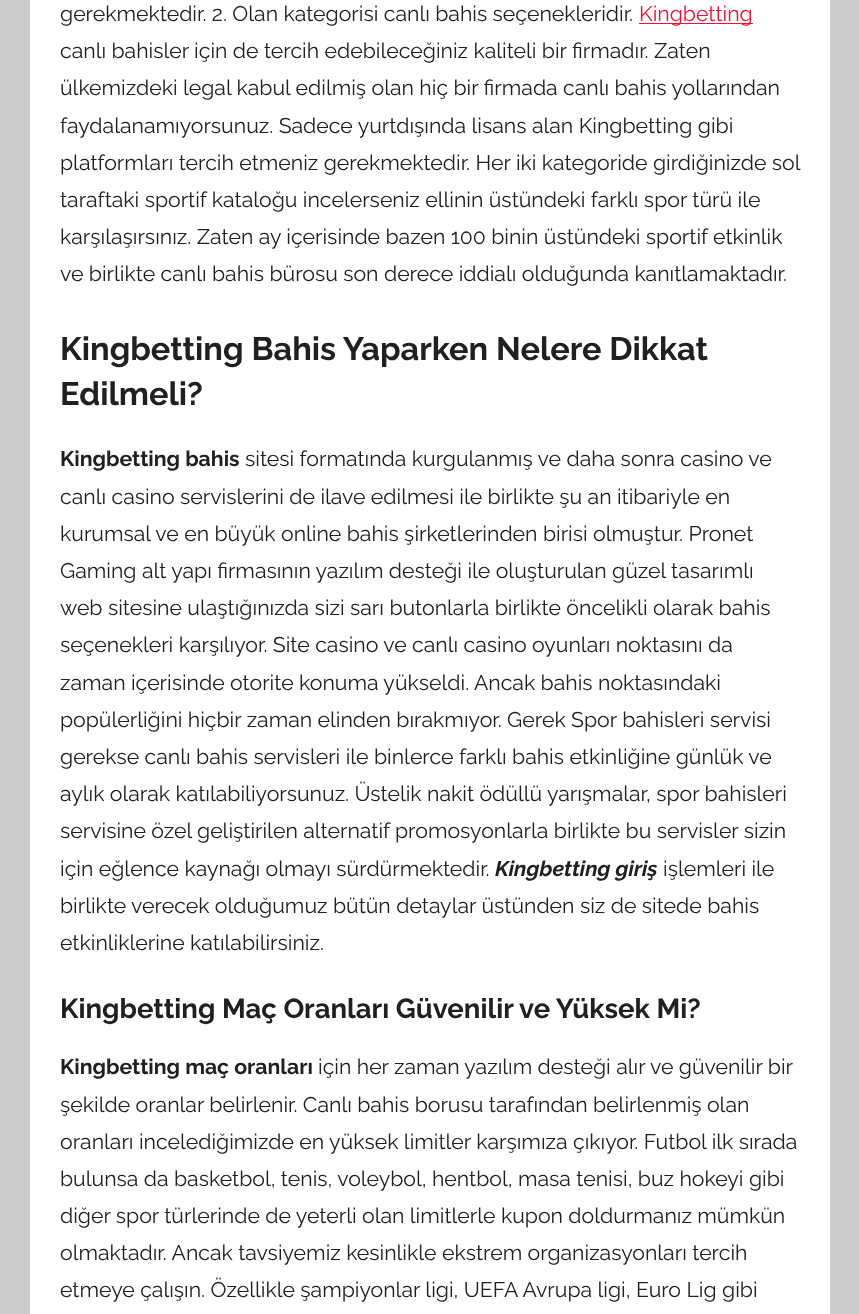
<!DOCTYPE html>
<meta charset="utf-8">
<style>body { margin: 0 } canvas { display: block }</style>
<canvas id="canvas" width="859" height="1314"></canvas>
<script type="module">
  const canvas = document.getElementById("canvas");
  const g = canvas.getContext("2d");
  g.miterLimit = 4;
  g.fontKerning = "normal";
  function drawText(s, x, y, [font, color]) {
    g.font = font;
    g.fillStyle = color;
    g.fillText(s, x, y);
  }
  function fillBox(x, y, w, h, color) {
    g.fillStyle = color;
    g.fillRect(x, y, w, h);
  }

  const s1 = ["100 21.25px Raleway", "#202020"];
  const s2 = ["100 21.25px Raleway", "#EE1133"];
  const s3 = ["100 32.5px 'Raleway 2'", "#202020"];
  const s4 = ["100 21.25px 'Raleway 2'", "#202020"];
  const s5 = ["italic 100 21.25px Raleway", "#202020"];
  const s6 = ["100 27.5px 'Raleway 2'", "#202020"];

  fillBox(0, 0, 859, 1314, "#CCCCCC");
  fillBox(30, 0, 800, 1314, "#FFFFFF");
  drawText("gerekmektedir. 2. Olan kategorisi canlı bahis seçenekleridir.", 60, 21, s1);
  fillBox(639, 23, 114, 1, "#EE1133");
  drawText("Kingbetting", 639, 21, s2);
  drawText("canlı bahisler için de tercih edebileceğiniz kaliteli bir firmadır. Zaten", 60, 58, s1);
  drawText("ülkemizdeki legal kabul edilmiş olan hiç bir firmada canlı bahis yollarından", 60, 95, s1);
  drawText("faydalanamıyorsunuz. Sadece yurtdışında lisans alan Kingbetting gibi", 60, 133, s1);
  drawText("platformları tercih etmeniz gerekmektedir. Her iki kategoride girdiğinizde sol", 60, 170, s1);
  drawText("taraftaki sportif kataloğu incelerseniz ellinin üstündeki farklı spor türü ile", 60, 207, s1);
  drawText("karşılaşırsınız. Zaten ay içerisinde bazen 100 binin üstündeki sportif etkinlik", 60, 244, s1);
  drawText("ve birlikte canlı bahis bürosu son derece iddialı olduğunda kanıtlamaktadır.", 60, 281, s1);
  drawText("Kingbetting Bahis Yaparken Nelere Dikkat", 60, 360, s3);
  drawText("Edilmeli?", 60, 405, s3);
  drawText("Kingbetting bahis", 60, 466, s4);
  drawText("sitesi formatında kurgulanmış ve daha sonra casino ve", 245, 466, s1);
  drawText("canlı casino servislerini de ilave edilmesi ile birlikte şu an itibariyle en", 60, 504, s1);
  drawText("kurumsal ve en büyük online bahis şirketlerinden birisi olmuştur. Pronet", 60, 541, s1);
  drawText("Gaming alt yapı firmasının yazılım desteği ile oluşturulan güzel tasarımlı", 60, 578, s1);
  drawText("web sitesine ulaştığınızda sizi sarı butonlarla birlikte öncelikli olarak bahis", 60, 615, s1);
  drawText("seçenekleri karşılıyor. Site casino ve canlı casino oyunları noktasını da", 60, 652, s1);
  drawText("zaman içerisinde otorite konuma yükseldi. Ancak bahis noktasındaki", 60, 690, s1);
  drawText("popülerliğini hiçbir zaman elinden bırakmıyor. Gerek Spor bahisleri servisi", 60, 727, s1);
  drawText("gerekse canlı bahis servisleri ile binlerce farklı bahis etkinliğine günlük ve", 60, 764, s1);
  drawText("aylık olarak katılabiliyorsunuz. Üstelik nakit ödüllü yarışmalar, spor bahisleri", 60, 801, s1);
  drawText("servisine özel geliştirilen alternatif promosyonlarla birlikte bu servisler sizin", 60, 838, s1);
  drawText("için eğlence kaynağı olmayı sürdürmektedir.", 60, 876, s1);
  drawText("Kingbetting giriş", 495, 876, s5);
  drawText("işlemleri ile", 663, 876, s1);
  drawText("birlikte verecek olduğumuz bütün detaylar üstünden siz de sitede bahis", 60, 913, s1);
  drawText("etkinliklerine katılabilirsiniz.", 60, 950, s1);
  drawText("Kingbetting Maç Oranları Güvenilir ve Yüksek Mi?", 60, 1018, s6);
  drawText("Kingbetting maç oranları", 60, 1074, s4);
  drawText("için her zaman yazılım desteği alır ve güvenilir bir", 318, 1074, s1);
  drawText("şekilde oranlar belirlenir. Canlı bahis borusu tarafından belirlenmiş olan", 60, 1112, s1);
  drawText("oranları incelediğimizde en yüksek limitler karşımıza çıkıyor. Futbol ilk sırada", 60, 1149, s1);
  drawText("bulunsa da basketbol, tenis, voleybol, hentbol, masa tenisi, buz hokeyi gibi", 60, 1186, s1);
  drawText("diğer spor türlerinde de yeterli olan limitlerle kupon doldurmanız mümkün", 60, 1223, s1);
  drawText("olmaktadır. Ancak tavsiyemiz kesinlikle ekstrem organizasyonları tercih", 60, 1260, s1);
  drawText("etmeye çalışın. Özellikle şampiyonlar ligi, UEFA Avrupa ligi, Euro Lig gibi", 60, 1297, s1);
</script>
